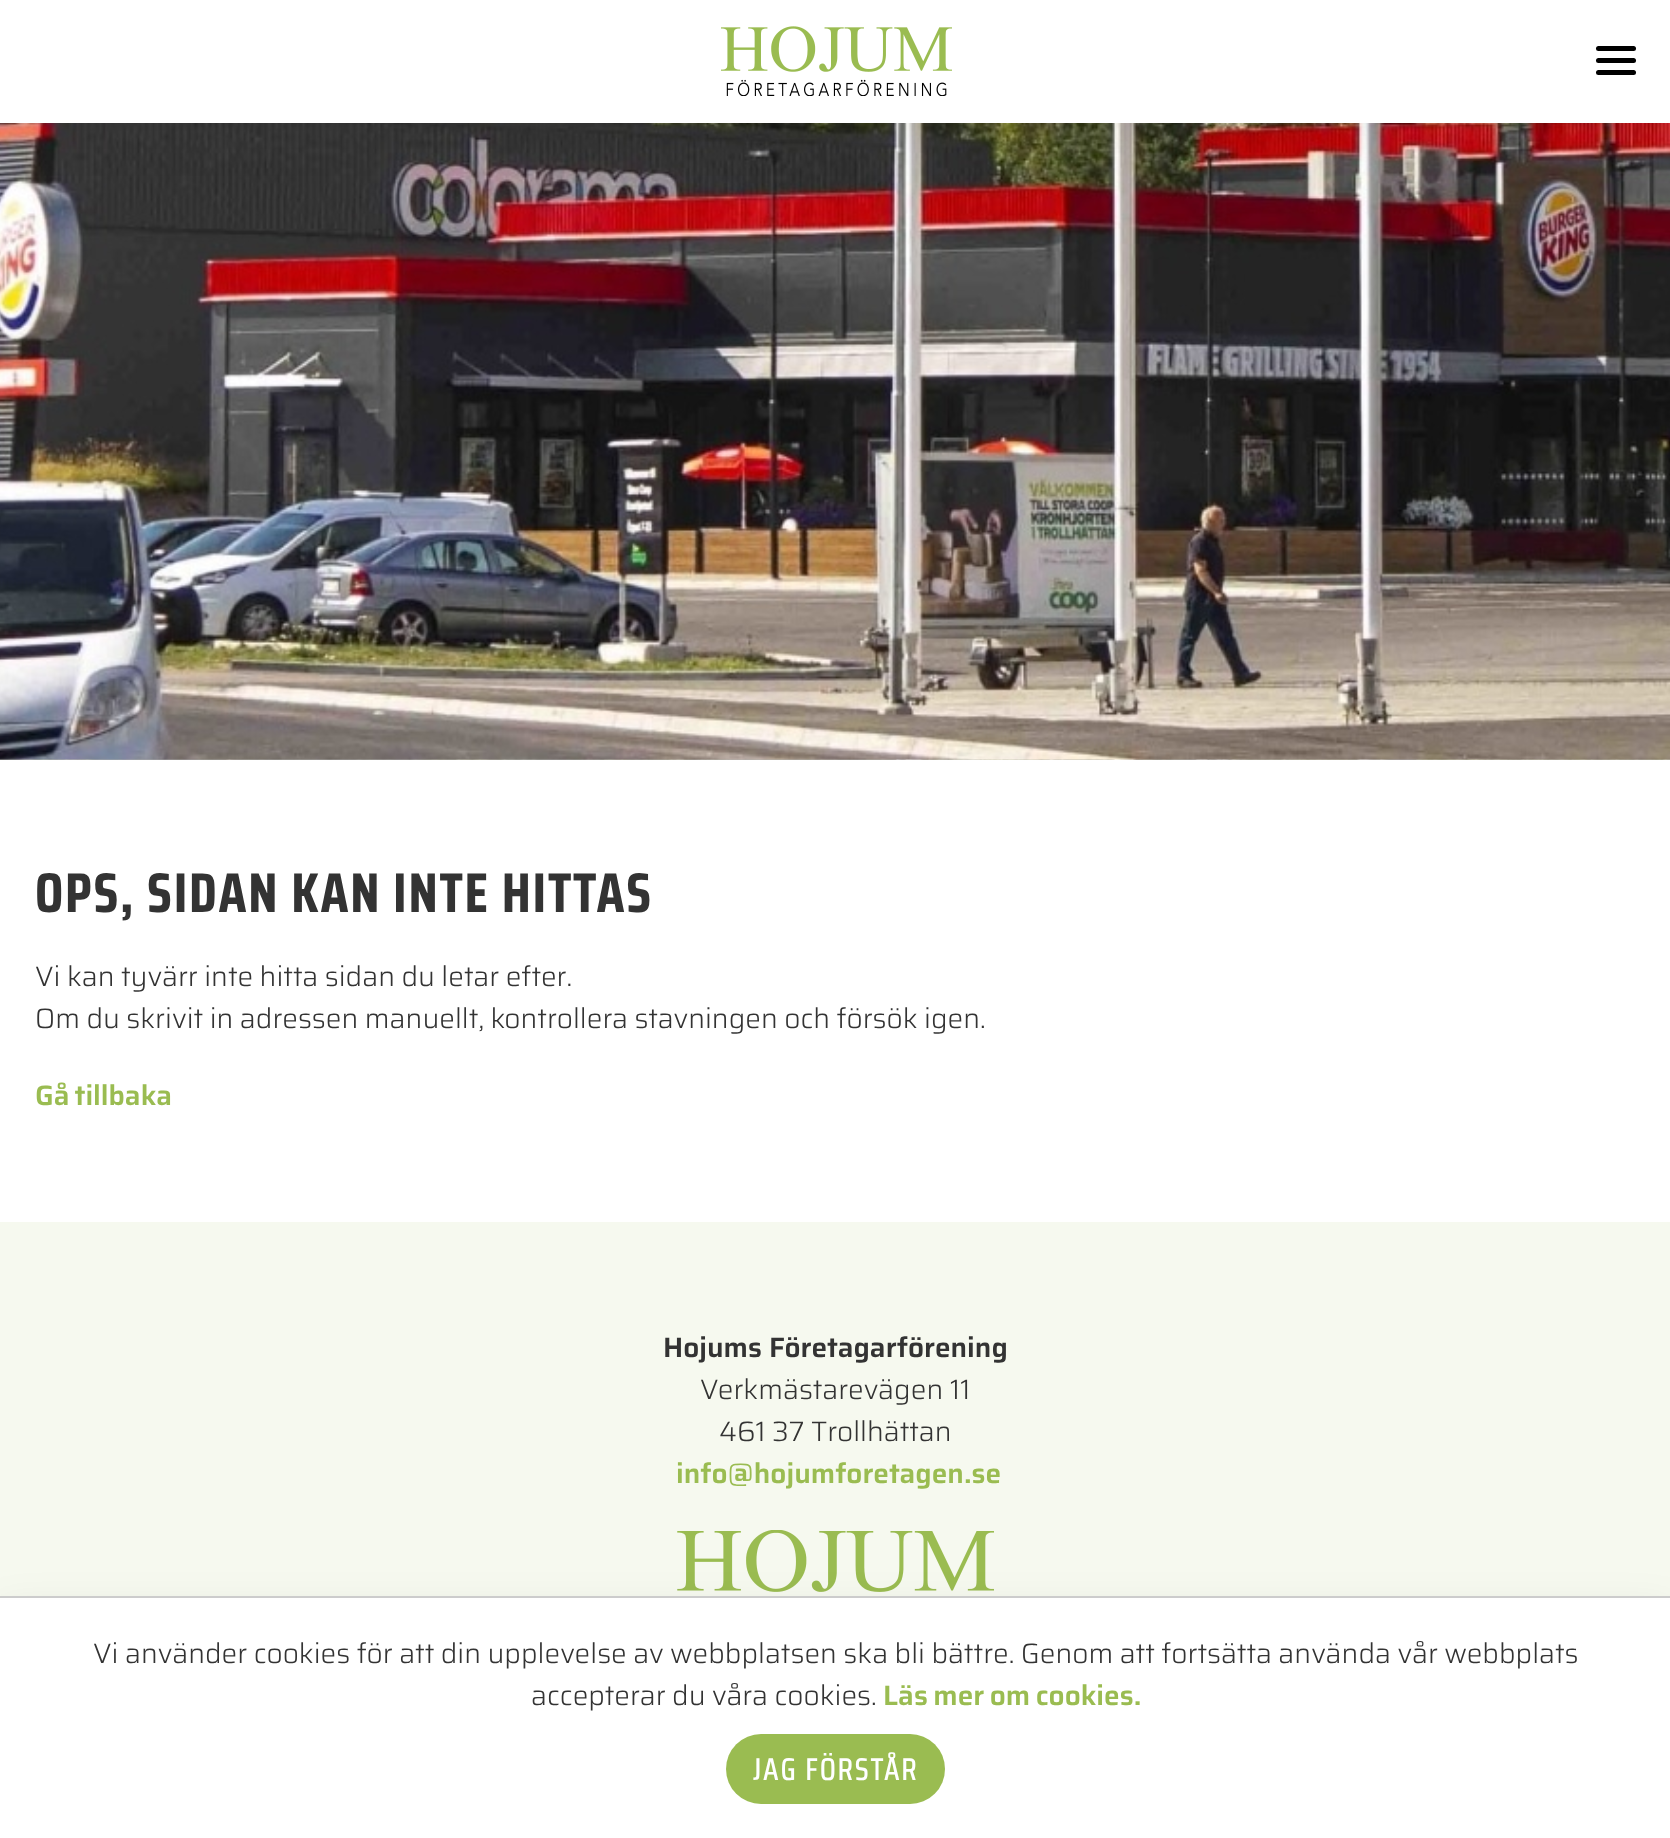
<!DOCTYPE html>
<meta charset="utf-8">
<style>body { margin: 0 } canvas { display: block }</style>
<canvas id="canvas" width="1670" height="1838"></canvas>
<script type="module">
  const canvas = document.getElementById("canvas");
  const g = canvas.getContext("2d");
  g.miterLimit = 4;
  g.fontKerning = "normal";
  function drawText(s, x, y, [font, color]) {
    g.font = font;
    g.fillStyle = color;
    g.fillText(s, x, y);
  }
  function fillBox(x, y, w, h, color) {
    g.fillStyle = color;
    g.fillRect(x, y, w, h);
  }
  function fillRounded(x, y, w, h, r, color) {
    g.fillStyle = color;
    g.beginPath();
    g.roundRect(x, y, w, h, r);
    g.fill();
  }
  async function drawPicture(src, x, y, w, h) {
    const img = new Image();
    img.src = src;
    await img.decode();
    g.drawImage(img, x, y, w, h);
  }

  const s1 = ["bold 56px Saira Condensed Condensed", "#333333"];
  const s2 = ["300 28px Saira", "#333333"];
  const s3 = ["600 28px Saira", "#9ABC51"];
  const s4 = ["600 28px Saira", "#333333"];
  const s5 = ["500 31.5px Saira Condensed", "#FFFFFF"];

  fillBox(0, 0, 1670, 1838, "#FFFFFF");
  await drawPicture("pic2.png", 0, 123, 1670, 637);
  g.fillStyle = "rgba(0, 0, 0, 0.05)";
  g.filter = "blur(22px)";
  g.beginPath();
  g.rect(0, 18, 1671, 122);
  g.fill();
  g.filter = "none";
  fillBox(0, 0, 1670, 123, "#FFFFFF");
  await drawPicture("pic1.png", 721, 26, 231, 70);
  fillRounded(1596, 46, 40, 5, 2.5, "#000000");
  fillRounded(1596, 58, 40, 5, 2.5, "#000000");
  fillRounded(1596, 70, 40, 5, 2.5, "#000000");
  g.letterSpacing = "1.75px";
  drawText("OPS, SIDAN KAN INTE HITTAS", 35, 912, s1);
  g.letterSpacing = "0px";
  drawText("Vi kan tyvärr inte hitta sidan du letar efter.", 35, 986, s2);
  drawText("Om du skrivit in adressen manuellt, kontrollera stavningen och försök igen.", 35, 1028, s2);
  g.wordSpacing = "-2px";
  drawText("Gå tillbaka", 35, 1105, s3);
  fillBox(0, 1222, 1670, 374, "#F6F9EF");
  g.wordSpacing = "0px";
  drawText("Hojums Företagarförening", 663, 1357, s4);
  drawText("Verkmästarevägen 11", 700, 1399, s2);
  drawText("461 37 Trollhättan", 719, 1441, s2);
  drawText("info@hojumforetagen.se", 676, 1483, s3);
  await drawPicture("pic3.png", 677, 1530, 317, 62);
  g.fillStyle = "rgba(0, 0, 0, 0.1)";
  g.filter = "blur(22px)";
  g.beginPath();
  g.rect(0, 1614, 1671, 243);
  g.fill();
  g.filter = "none";
  fillBox(0, 1598, 1670, 240, "#FFFFFF");
  fillBox(0, 1596, 1670, 2, "#CCCCCC");
  drawText("Vi använder cookies för att din upplevelse av webbplatsen ska bli bättre. Genom att fortsätta använda vår webbplats", 93, 1663, s2);
  drawText("accepterar du våra cookies.", 531, 1705, s2);
  g.wordSpacing = "-1.5px";
  drawText("Läs mer om cookies.", 883, 1705, s3);
  fillRounded(726, 1734, 219, 70, 35, "#9ABC51");
  g.letterSpacing = "1.75px";
  g.wordSpacing = "0px";
  drawText("JAG FÖRSTÅR", 753, 1780, s5);
</script>
